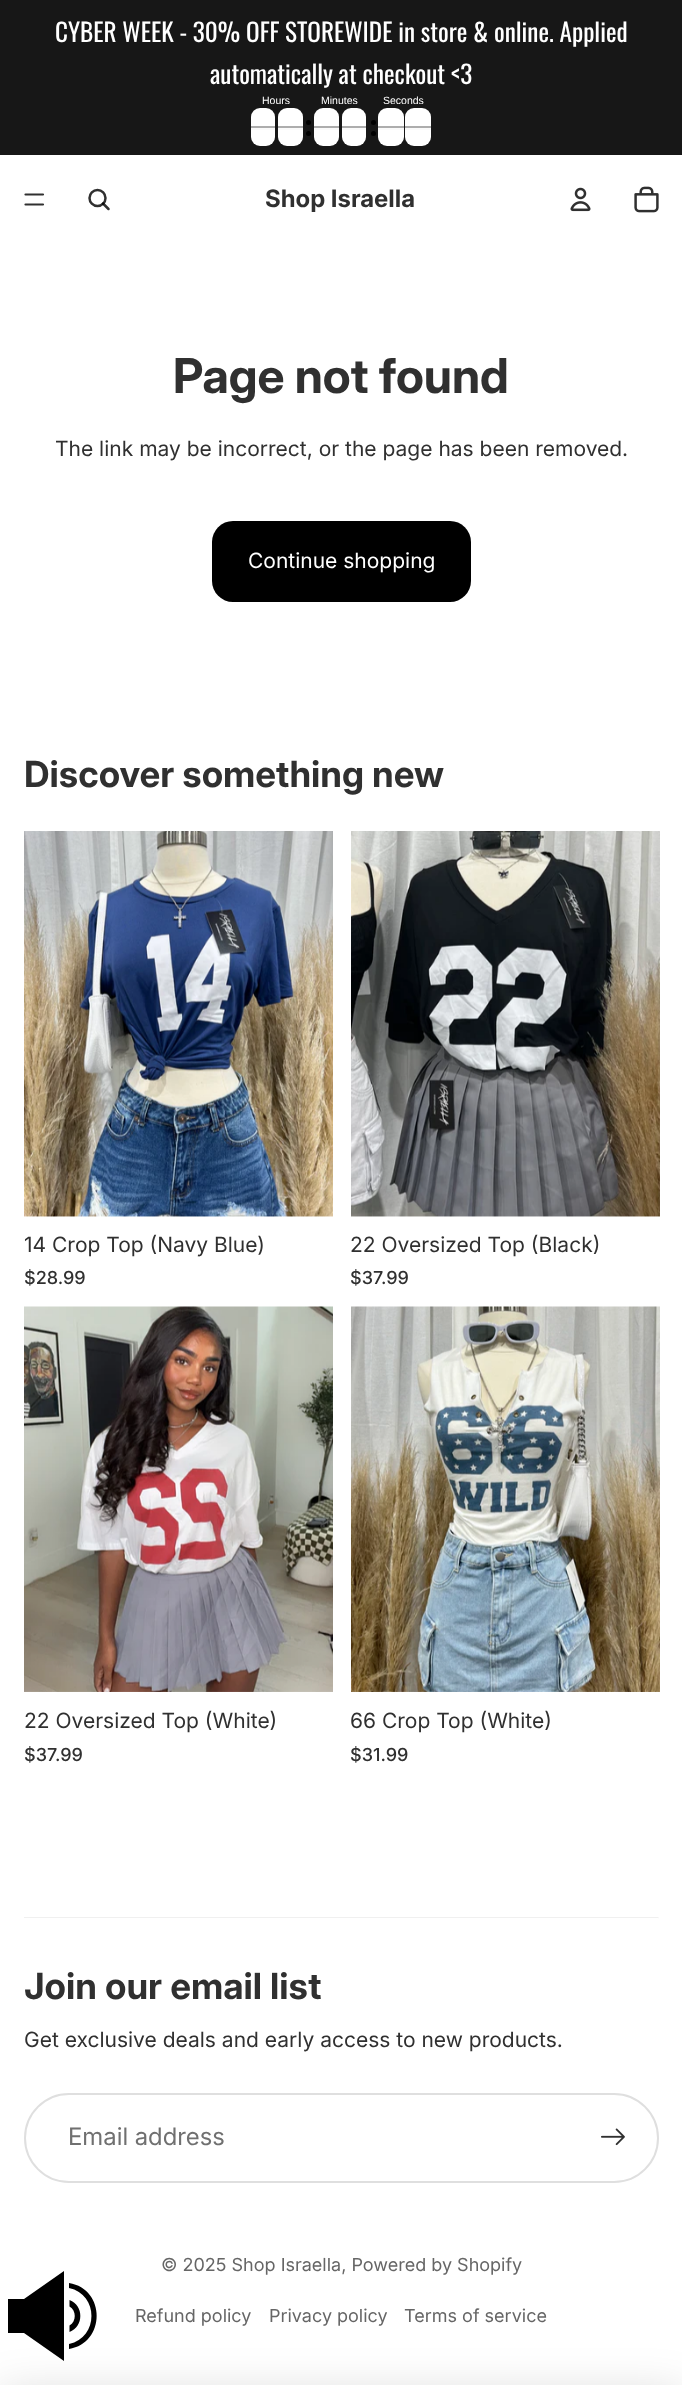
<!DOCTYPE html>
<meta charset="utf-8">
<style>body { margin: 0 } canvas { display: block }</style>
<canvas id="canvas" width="682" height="2385"></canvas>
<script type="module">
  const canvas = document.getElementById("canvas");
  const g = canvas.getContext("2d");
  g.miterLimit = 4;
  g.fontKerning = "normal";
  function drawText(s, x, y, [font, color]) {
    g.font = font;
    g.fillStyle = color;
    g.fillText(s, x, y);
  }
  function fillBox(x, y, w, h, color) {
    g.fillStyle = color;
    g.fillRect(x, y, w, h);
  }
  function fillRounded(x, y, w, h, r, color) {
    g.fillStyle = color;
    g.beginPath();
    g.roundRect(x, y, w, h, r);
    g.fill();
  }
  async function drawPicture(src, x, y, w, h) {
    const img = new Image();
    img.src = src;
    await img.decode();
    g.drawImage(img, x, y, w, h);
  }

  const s1 = ["25.2px Oswald", "#FFFFFF"];
  const s2 = ["10.5px Liberation Sans", "#FFFFFF"];
  const s3 = ["bold 24px 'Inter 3'", "#303030"];
  const s4 = ["bold 48px Inter", "#303030"];
  const s5 = ["21px Inter", "#303030"];
  const s6 = ["21px Inter", "#FFFFFF"];
  const s7 = ["bold 36px 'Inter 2'", "#303030"];
  const s8 = ["500 18px Inter", "#303030"];
  const s9 = ["24px 'Inter 2'", "#707070"];
  const s10 = ["18px Inter", "#666666"];

  fillBox(0, 0, 682, 2385, "#FFFFFF");
  fillBox(0, 0, 682, 155, "#171717");
  drawText("CYBER WEEK - 30% OFF STOREWIDE in store & online. Applied", 55, 42, s1);
  drawText("automatically at checkout <3", 210, 84, s1);
  drawText("Hours", 262, 104, s2);
  g.beginPath();
  g.roundRect(251, 108, 24, 20, [9, 9, 0, 0]);
  g.fill();
  fillBox(251, 126, 24, 2, "rgba(51, 51, 51, 0.4)");
  g.fillStyle = "#FFFFFF";
  g.beginPath();
  g.roundRect(251, 128, 24, 18, [0, 0, 9, 9]);
  g.fill();
  fillBox(251, 128, 24, 2, "rgba(204, 204, 204, 0.1)");
  g.fillStyle = "#FFFFFF";
  g.beginPath();
  g.roundRect(278, 108, 25, 20, [9, 9, 0, 0]);
  g.fill();
  fillBox(278, 126, 25, 2, "rgba(51, 51, 51, 0.4)");
  g.fillStyle = "#FFFFFF";
  g.beginPath();
  g.roundRect(278, 128, 25, 18, [0, 0, 9, 9]);
  g.fill();
  fillBox(278, 128, 25, 2, "rgba(204, 204, 204, 0.1)");
  drawText("Minutes", 321, 104, s2);
  g.beginPath();
  g.roundRect(314, 108, 25, 20, [9, 9, 0, 0]);
  g.fill();
  fillBox(314, 126, 25, 2, "rgba(51, 51, 51, 0.4)");
  g.fillStyle = "#FFFFFF";
  g.beginPath();
  g.roundRect(314, 128, 25, 18, [0, 0, 9, 9]);
  g.fill();
  fillBox(314, 128, 25, 2, "rgba(204, 204, 204, 0.1)");
  g.fillStyle = "#FFFFFF";
  g.beginPath();
  g.roundRect(342, 108, 24, 20, [9, 9, 0, 0]);
  g.fill();
  fillBox(342, 126, 24, 2, "rgba(51, 51, 51, 0.4)");
  g.fillStyle = "#FFFFFF";
  g.beginPath();
  g.roundRect(342, 128, 24, 18, [0, 0, 9, 9]);
  g.fill();
  fillBox(342, 128, 24, 2, "rgba(204, 204, 204, 0.1)");
  drawText("Seconds", 383, 104, s2);
  g.beginPath();
  g.roundRect(378, 108, 26, 20, [9, 9, 0, 0]);
  g.fill();
  fillBox(378, 126, 26, 2, "rgba(51, 51, 51, 0.4)");
  g.fillStyle = "#FFFFFF";
  g.beginPath();
  g.roundRect(378, 128, 26, 18, [0, 0, 9, 9]);
  g.fill();
  fillBox(378, 128, 26, 2, "rgba(204, 204, 204, 0.1)");
  g.fillStyle = "#FFFFFF";
  g.beginPath();
  g.roundRect(405, 108, 26, 20, [9, 9, 0, 0]);
  g.fill();
  fillBox(405, 126, 26, 2, "rgba(51, 51, 51, 0.4)");
  g.fillStyle = "#FFFFFF";
  g.beginPath();
  g.roundRect(405, 128, 26, 18, [0, 0, 9, 9]);
  g.fill();
  fillBox(405, 128, 26, 2, "rgba(204, 204, 204, 0.1)");
  g.fillStyle = "#000000";
  g.beginPath();
  g.arc(308.5, 122.5, 2.5, 0, Math.PI * 2);
  g.fill();
  g.beginPath();
  g.arc(308.5, 133.5, 2.5, 0, Math.PI * 2);
  g.fill();
  g.beginPath();
  g.arc(373.5, 122.5, 2.5, 0, Math.PI * 2);
  g.fill();
  g.beginPath();
  g.arc(373.5, 133.5, 2.5, 0, Math.PI * 2);
  g.fill();
  g.beginPath();
  g.moveTo(25.5, 194.5);
  g.lineTo(43, 194.5);
  g.moveTo(25.5, 204.5);
  g.lineTo(43, 204.5);
  g.strokeStyle = "#303030";
  g.lineWidth = 2.2;
  g.lineCap = "round";
  g.stroke();
  g.beginPath();
  g.arc(97.5, 198, 8, 0, Math.PI * 2);
  g.lineWidth = 2.5;
  g.stroke();
  g.beginPath();
  g.moveTo(103, 203.5);
  g.lineTo(108.5, 209);
  g.strokeStyle = "rgba(0, 0, 0, 0.81)";
  g.lineJoin = "round";
  g.stroke();
  drawText("Shop Israella", 265, 207, s3);
  await drawPicture("pic1.png", 570, 187, 21, 25);
  await drawPicture("pic2.png", 634, 186, 25, 27);
  drawText("Page not found", 173, 393, s4);
  drawText("The link may be incorrect, or the page has been removed.", 55, 456, s5);
  fillRounded(212, 521, 259, 81, 21, "#000000");
  drawText("Continue shopping", 248, 568, s6);
  drawText("Discover something new", 24, 787, s7);
  await drawPicture("pic3.png", 24, 831, 309, 386);
  drawText("14 Crop Top (Navy Blue)", 24, 1252, s5);
  drawText("$28.99", 24, 1284, s8);
  await drawPicture("pic4.png", 351, 831, 309, 386);
  drawText("22 Oversized Top (Black)", 350, 1252, s5);
  drawText("$37.99", 350, 1284, s8);
  await drawPicture("pic5.png", 24, 1306, 309, 386);
  drawText("22 Oversized Top (White)", 24, 1728, s5);
  drawText("$37.99", 24, 1761, s8);
  await drawPicture("pic6.png", 351, 1306, 309, 386);
  drawText("66 Crop Top (White)", 350, 1728, s5);
  drawText("$31.99", 350, 1761, s8);
  g.fillStyle = "#F0F0F0";
  g.beginPath();
  g.moveTo(658.5, 1917);
  g.lineTo(658.5, 1918.5);
  g.lineTo(657, 1917);
  g.closePath();
  g.fill();
  g.fillStyle = "rgba(0, 0, 0, 0.06)";
  g.beginPath();
  g.moveTo(658, 1918);
  g.lineTo(24, 1918);
  g.lineTo(24, 1917);
  g.lineTo(657, 1917);
  g.closePath();
  g.fill();
  drawText("Join our email list", 24, 1999, s7);
  drawText("Get exclusive deals and early access to new products.", 24, 2047, s5);
  g.beginPath();
  g.roundRect(25, 2094, 633, 88, 44);
  g.strokeStyle = "#DFDFDF";
  g.lineWidth = 2;
  g.lineJoin = "miter";
  g.stroke();
  drawText("Email address", 68, 2145, s9);
  await drawPicture("pic7.png", 601, 2128, 24, 18);
  drawText("© 2025 Shop Israella, Powered by Shopify", 161, 2271, s10);
  drawText("Refund policy", 135, 2322, s10);
  drawText("Privacy policy", 269, 2322, s10);
  drawText("Terms of service", 404, 2322, s10);
  g.fillStyle = "rgba(0, 0, 0, 0.15)";
  g.filter = "blur(22.5px)";
  g.beginPath();
  g.rect(0, 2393, 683, 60);
  g.fill();
  g.filter = "none";
  g.fillStyle = "#000000";
  g.beginPath();
  g.moveTo(64, 2361);
  g.lineTo(64, 2271);
  g.lineTo(24, 2299);
  g.lineTo(8, 2299);
  g.lineTo(8, 2333);
  g.lineTo(24, 2333);
  g.closePath();
  g.fill("evenodd");
  g.beginPath();
  g.moveTo(69, 2349);
  g.bezierCurveTo(106, 2343, 106, 2289, 69, 2283);
  g.lineTo(69, 2288);
  g.bezierCurveTo(99, 2294, 99, 2338, 69, 2344);
  g.closePath();
  g.fill("evenodd");
  g.beginPath();
  g.moveTo(69.5, 2325.5);
  g.lineTo(69.5, 2332);
  g.bezierCurveTo(84, 2326.5, 84, 2305.5, 69.5, 2300);
  g.lineTo(69.5, 2306.5);
  g.bezierCurveTo(76.5, 2310.5, 76.5, 2321.5, 69.5, 2325.5);
  g.closePath();
  g.fill("evenodd");
</script>
